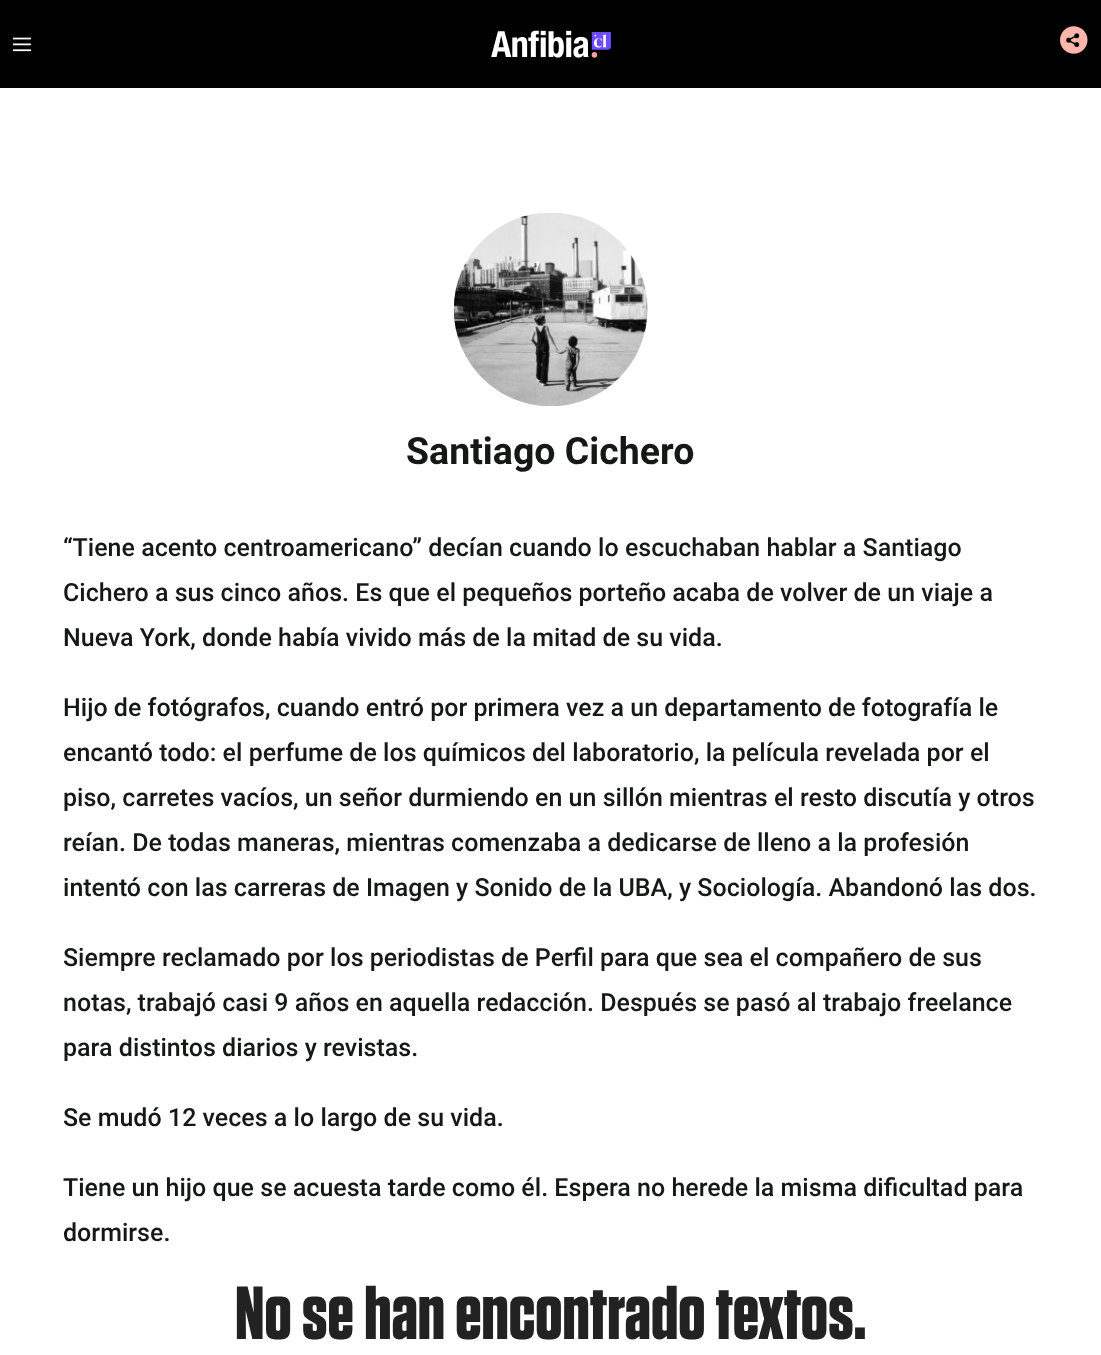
<!DOCTYPE html>
<meta charset="utf-8">
<style>body { margin: 0 } canvas { display: block }</style>
<canvas id="canvas" width="1101" height="1355"></canvas>
<script type="module">
  const canvas = document.getElementById("canvas");
  const g = canvas.getContext("2d");
  g.miterLimit = 4;
  g.fontKerning = "normal";
  function drawText(s, x, y, [font, color]) {
    g.font = font;
    g.fillStyle = color;
    g.fillText(s, x, y);
  }
  function fillBox(x, y, w, h, color) {
    g.fillStyle = color;
    g.fillRect(x, y, w, h);
  }
  async function drawPicture(src, x, y, w, h) {
    const img = new Image();
    img.src = src;
    await img.decode();
    g.drawImage(img, x, y, w, h);
  }

  const s1 = ["bold 37.5px Roboto", "#141916"];
  const s2 = ["500 25px Roboto", "#141916"];
  const s3 = ["bold 75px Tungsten", "#222222"];

  fillBox(0, 0, 1101, 1355, "#FFFFFF");
  fillBox(0, 0, 1101, 88, "#000000");
  await drawPicture("pic1.png", 13, 37, 18, 15);
  await drawPicture("pic2.png", 491, 30, 120, 28);
  await drawPicture("pic3.png", 1060, 26, 28, 28);
  await drawPicture("pic4.png", 453, 212, 195, 195);
  drawText("Santiago Cichero", 406, 464, s1);
  drawText("“Tiene acento centroamericano” decían cuando lo escuchaban hablar a Santiago", 63, 556, s2);
  drawText("Cichero a sus cinco años. Es que el pequeños porteño acaba de volver de un viaje a", 63, 601, s2);
  drawText("Nueva York, donde había vivido más de la mitad de su vida.", 63, 646, s2);
  drawText("Hijo de fotógrafos, cuando entró por primera vez a un departamento de fotografía le", 63, 716, s2);
  drawText("encantó todo: el perfume de los químicos del laboratorio, la película revelada por el", 63, 761, s2);
  drawText("piso, carretes vacíos, un señor durmiendo en un sillón mientras el resto discutía y otros", 63, 806, s2);
  drawText("reían. De todas maneras, mientras comenzaba a dedicarse de lleno a la profesión", 63, 851, s2);
  drawText("intentó con las carreras de Imagen y Sonido de la UBA, y Sociología. Abandonó las dos.", 63, 896, s2);
  drawText("Siempre reclamado por los periodistas de Perfil para que sea el compañero de sus", 63, 966, s2);
  drawText("notas, trabajó casi 9 años en aquella redacción. Después se pasó al trabajo freelance", 63, 1011, s2);
  drawText("para distintos diarios y revistas.", 63, 1056, s2);
  drawText("Se mudó 12 veces a lo largo de su vida.", 63, 1126, s2);
  drawText("Tiene un hijo que se acuesta tarde como él. Espera no herede la misma dificultad para", 63, 1196, s2);
  drawText("dormirse.", 63, 1241, s2);
  drawText("No se han encontrado textos.", 235, 1339, s3);
</script>
